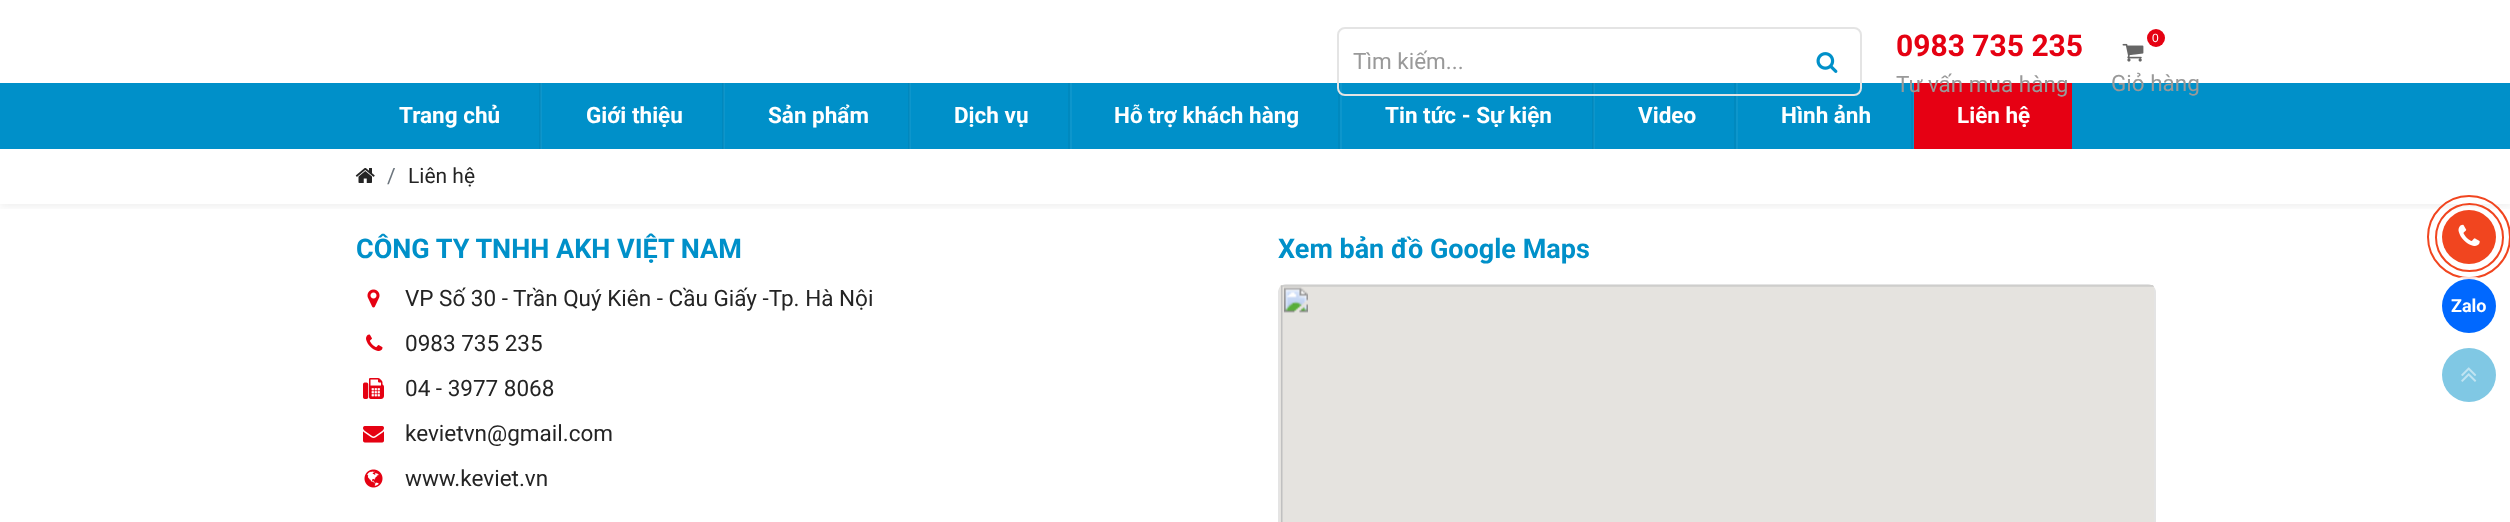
<!DOCTYPE html>
<meta charset="utf-8">
<style>body { margin: 0 } canvas { display: block }</style>
<canvas id="canvas" width="2510" height="522"></canvas>
<script type="module">
  const canvas = document.getElementById("canvas");
  const g = canvas.getContext("2d");
  g.miterLimit = 4;
  g.fontKerning = "normal";
  function drawText(s, x, y, [font, color]) {
    g.font = font;
    g.fillStyle = color;
    g.fillText(s, x, y);
  }
  function fillBox(x, y, w, h, color) {
    g.fillStyle = color;
    g.fillRect(x, y, w, h);
  }
  async function drawPicture(src, x, y, w, h) {
    const img = new Image();
    img.src = src;
    await img.decode();
    g.drawImage(img, x, y, w, h);
  }

  const s1 = ["22.5px Roboto", "#999999"];
  const s2 = ["bold 30px Roboto", "#E50112"];
  const s3 = ["12px Liberation Sans", "#FFFFFF"];
  const s4 = ["bold 22.5px Roboto", "#FFFFFF"];
  const s5 = ["21px Roboto", "#6C757D"];
  const s6 = ["21px Roboto", "#242424"];
  const s7 = ["bold 27px Roboto", "#0090C9"];
  const s8 = ["22.5px Roboto", "#242424"];
  const s9 = ["bold 18px Roboto", "#FFFFFF"];

  fillBox(0, 0, 2510, 522, "#FFFFFF");
  g.save();
  g.beginPath();
  g.rect(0, 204, 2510, 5);
  g.clip();
  g.fillStyle = "rgba(0, 0, 0, 0.06)";
  g.filter = "blur(4px)";
  g.beginPath();
  g.rect(0, 152, 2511, 55);
  g.fill();
  g.filter = "none";
  g.restore();
  fillBox(0, 83, 2510, 66, "#0090C9");
  fillBox(1340, 83, 2, 66, "#0D96CC");
  fillBox(1338, 83, 2, 66, "#0089BF");
  fillBox(1593, 83, 2, 66, "#0D96CC");
  fillBox(1592, 83, 2, 66, "rgba(0, 0, 0, 0.05)");
  fillBox(1736, 83, 2, 66, "#0D96CC");
  fillBox(1734, 83, 2, 66, "#0089BF");
  g.beginPath();
  g.roundRect(1338, 28, 523, 67, 7);
  g.strokeStyle = "#E4E4E4";
  g.lineWidth = 2;
  g.stroke();
  drawText("Tìm kiếm...", 1353, 69, s1);
  await drawPicture("pic1.png", 1816, 52, 22, 21);
  drawText("0983 735 235", 1896, 56, s2);
  fillBox(1913, 83, 1, 66, "#0D96CC");
  fillBox(1911, 83, 2, 66, "#0089BF");
  fillBox(1914, 83, 158, 66, "#E60013");
  drawText("Tư vấn mua hàng", 1896, 92, s1);
  g.fillStyle = "#E50112";
  g.beginPath();
  g.arc(2156, 38, 9, 0, Math.PI * 2);
  g.fill();
  drawText("0", 2152, 42, s3);
  await drawPicture("pic2.png", 2122, 43, 22, 19);
  drawText("Giỏ hàng", 2111, 91, s1);
  drawText("Trang chủ", 399, 123, s4);
  fillBox(540, 83, 2, 66, "#0D96CC");
  fillBox(539, 83, 2, 66, "rgba(0, 0, 0, 0.05)");
  drawText("Giới thiệu", 586, 123, s4);
  fillBox(723, 83, 2, 66, "#0D96CC");
  fillBox(722, 83, 2, 66, "rgba(0, 0, 0, 0.05)");
  drawText("Sản phẩm", 768, 123, s4);
  fillBox(909, 83, 2, 66, "#0D96CC");
  fillBox(908, 83, 2, 66, "rgba(0, 0, 0, 0.05)");
  drawText("Dịch vụ", 954, 123, s4);
  fillBox(1070, 83, 2, 66, "#0D96CC");
  fillBox(1068, 83, 2, 66, "#0089BF");
  drawText("Hỗ trợ khách hàng", 1114, 123, s4);
  drawText("Tin tức - Sự kiện", 1385, 123, s4);
  drawText("Video", 1638, 123, s4);
  drawText("Hình ảnh", 1781, 123, s4);
  drawText("Liên hệ", 1957, 123, s4);
  await drawPicture("pic3.png", 355, 168, 20, 15);
  drawText("/", 387, 183, s5);
  drawText("Liên hệ", 408, 183, s6);
  drawText("CÔNG TY TNHH AKH VIỆT NAM", 356, 258, s7);
  await drawPicture("pic4.png", 367, 289, 13, 19);
  drawText("VP Số 30 - Trần Quý Kiên - Cầu Giấy -Tp. Hà Nội", 405, 306, s8);
  await drawPicture("pic5.png", 366, 334, 17, 17);
  drawText("0983 735 235", 405, 351, s8);
  await drawPicture("pic6.png", 363, 378, 21, 21);
  drawText("04 - 3977 8068", 405, 396, s8);
  await drawPicture("pic7.png", 363, 426, 21, 17);
  drawText("kevietvn@gmail.com", 405, 441, s8);
  await drawPicture("pic8.png", 364, 469, 19, 19);
  drawText("www.keviet.vn", 405, 486, s8);
  drawText("Xem bản đồ Google Maps", 1278, 258, s7);
  g.fillStyle = "#E4E4E4";
  g.beginPath();
  g.moveTo(1278, 292);
  g.lineTo(1278, 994);
  g.bezierCurveTo(1278, 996, 1279, 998, 1280, 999);
  g.lineTo(1280, 287);
  g.bezierCurveTo(1279, 288, 1278, 290, 1278, 292);
  g.closePath();
  g.moveTo(1286, 284);
  g.bezierCurveTo(1284, 284, 1282, 285, 1281, 286);
  g.lineTo(2153, 286);
  g.bezierCurveTo(2152, 285, 2150, 284, 2148, 284);
  g.closePath();
  g.moveTo(2156, 292);
  g.bezierCurveTo(2156, 290, 2155, 288, 2154, 287);
  g.lineTo(2154, 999);
  g.bezierCurveTo(2155, 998, 2156, 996, 2156, 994);
  g.closePath();
  g.moveTo(2148, 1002);
  g.bezierCurveTo(2150, 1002, 2152, 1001, 2153, 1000);
  g.lineTo(1281, 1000);
  g.bezierCurveTo(1282, 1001, 1284, 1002, 1286, 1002);
  g.closePath();
  g.fill("evenodd");
  await drawPicture("pic9.png", 1279, 285, 875, 237);
  g.beginPath();
  g.arc(2469, 237, 28.5, 0, Math.PI * 2);
  g.strokeStyle = "rgba(255, 255, 255, 0.8)";
  g.lineWidth = 3;
  g.stroke();
  g.beginPath();
  g.arc(2469, 237, 41, 0, Math.PI * 2);
  g.strokeStyle = "#F1451F";
  g.lineWidth = 2;
  g.stroke();
  g.beginPath();
  g.arc(2469.5, 237.5, 33.5, 0, Math.PI * 2);
  g.stroke();
  g.fillStyle = "#F1451F";
  g.beginPath();
  g.arc(2469, 237, 27, 0, Math.PI * 2);
  g.fill();
  await drawPicture("pic10.png", 2458, 224, 22, 22);
  g.beginPath();
  g.arc(2469, 306, 28.5, 0, Math.PI * 2);
  g.strokeStyle = "rgba(255, 255, 255, 0.8)";
  g.lineWidth = 3;
  g.stroke();
  g.fillStyle = "#0068FF";
  g.beginPath();
  g.arc(2469, 306, 27, 0, Math.PI * 2);
  g.fill();
  drawText("Zalo", 2451, 312, s9);
  g.fillStyle = "#80C8E4";
  g.beginPath();
  g.arc(2469, 375, 27, 0, Math.PI * 2);
  g.fill();
  await drawPicture("pic11.png", 2461, 367, 16, 15);
</script>
